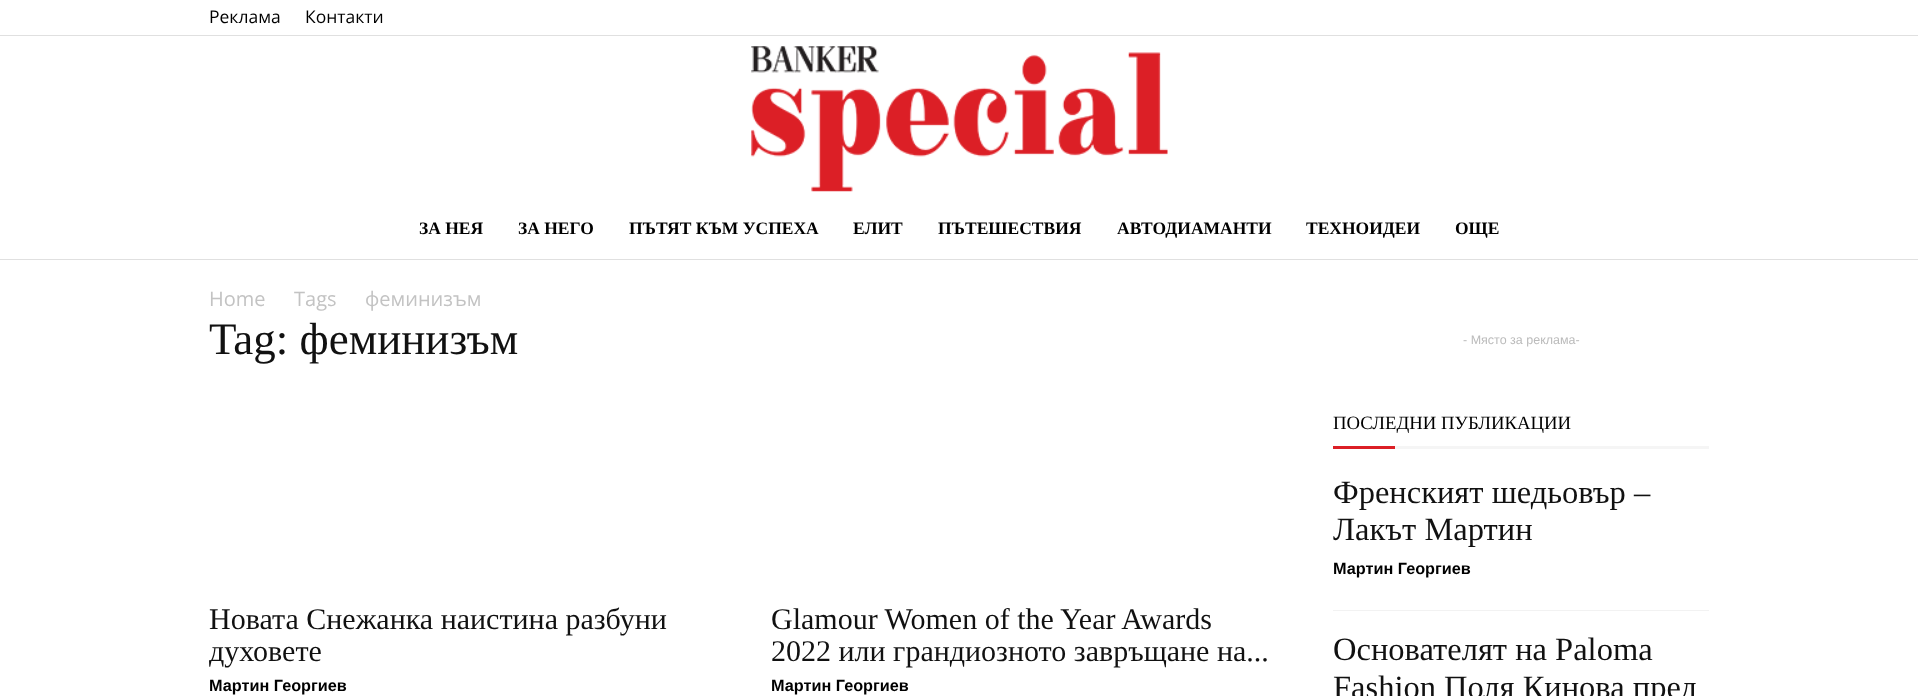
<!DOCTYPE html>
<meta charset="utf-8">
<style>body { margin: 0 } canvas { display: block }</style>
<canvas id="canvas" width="1918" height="696"></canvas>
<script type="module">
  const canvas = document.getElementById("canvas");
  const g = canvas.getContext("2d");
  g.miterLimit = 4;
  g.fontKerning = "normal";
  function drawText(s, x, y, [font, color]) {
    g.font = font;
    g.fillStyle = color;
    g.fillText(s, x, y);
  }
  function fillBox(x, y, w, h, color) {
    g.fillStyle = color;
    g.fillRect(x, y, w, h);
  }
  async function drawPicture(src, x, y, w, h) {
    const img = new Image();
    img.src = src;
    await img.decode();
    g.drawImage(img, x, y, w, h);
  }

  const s1 = ["17.5px Open Sans", "#000000"];
  const s2 = ["bold 17.5px Liberation Serif", "#000000"];
  const s3 = ["20px Open Sans", "#C3C3C3"];
  const s4 = ["45px Liberation Serif", "#111111"];
  const s5 = ["30px Liberation Serif", "#111111"];
  const s6 = ["bold 16.25px Liberation Sans", "#000000"];
  const s7 = ["12.5px Liberation Sans", "#BBBBBB"];
  const s8 = ["18.75px Liberation Serif", "#000000"];
  const s9 = ["32.5px Liberation Serif", "#111111"];

  fillBox(0, 0, 1918, 696, "#FFFFFF");
  fillBox(0, 35, 1918, 1, "#E0E0E0");
  drawText("Реклама", 209, 23, s1);
  drawText("Контакти", 305, 23, s1);
  await drawPicture("pic1.png", 751, 46, 417, 146);
  fillBox(0, 259, 1918, 1, "#E0E0E0");
  drawText("ЗА НЕЯ", 419, 234, s2);
  drawText("ЗА НЕГО", 518, 234, s2);
  drawText("ПЪТЯТ КЪМ УСПЕХА", 629, 234, s2);
  drawText("ЕЛИТ", 853, 234, s2);
  drawText("ПЪТЕШЕСТВИЯ", 938, 234, s2);
  drawText("АВТОДИАМАНТИ", 1117, 234, s2);
  drawText("ТЕХНОИДЕИ", 1306, 234, s2);
  drawText("ОЩЕ", 1455, 234, s2);
  drawText("Home", 209, 306, s3);
  drawText("Tags", 294, 306, s3);
  drawText("феминизъм", 365, 306, s3);
  drawText("Tag: феминизъм", 209, 354, s4);
  drawText("Новата Снежанка наистина разбуни", 209, 629, s5);
  drawText("духовете", 209, 661, s5);
  drawText("Мартин Георгиев", 209, 691, s6);
  drawText("Glamour Women of the Year Awards", 771, 629, s5);
  drawText("2022 или грандиозното завръщане на...", 771, 661, s5);
  drawText("Мартин Георгиев", 771, 691, s6);
  drawText("- Място за реклама-", 1463, 344, s7);
  drawText("ПОСЛЕДНИ ПУБЛИКАЦИИ", 1333, 429, s8);
  fillBox(1333, 446, 62, 3, "#DC1F26");
  fillBox(1395, 446, 314, 3, "#F5F5F5");
  fillBox(1333, 610, 376, 1, "#F2F2F2");
  drawText("Френският шедьовър –", 1333, 503, s9);
  drawText("Лакът Мартин", 1333, 540, s9);
  drawText("Мартин Георгиев", 1333, 574, s6);
  drawText("Основателят на Paloma", 1333, 660, s9);
  drawText("Fashion Поля Кинова пред", 1333, 698, s9);
</script>
